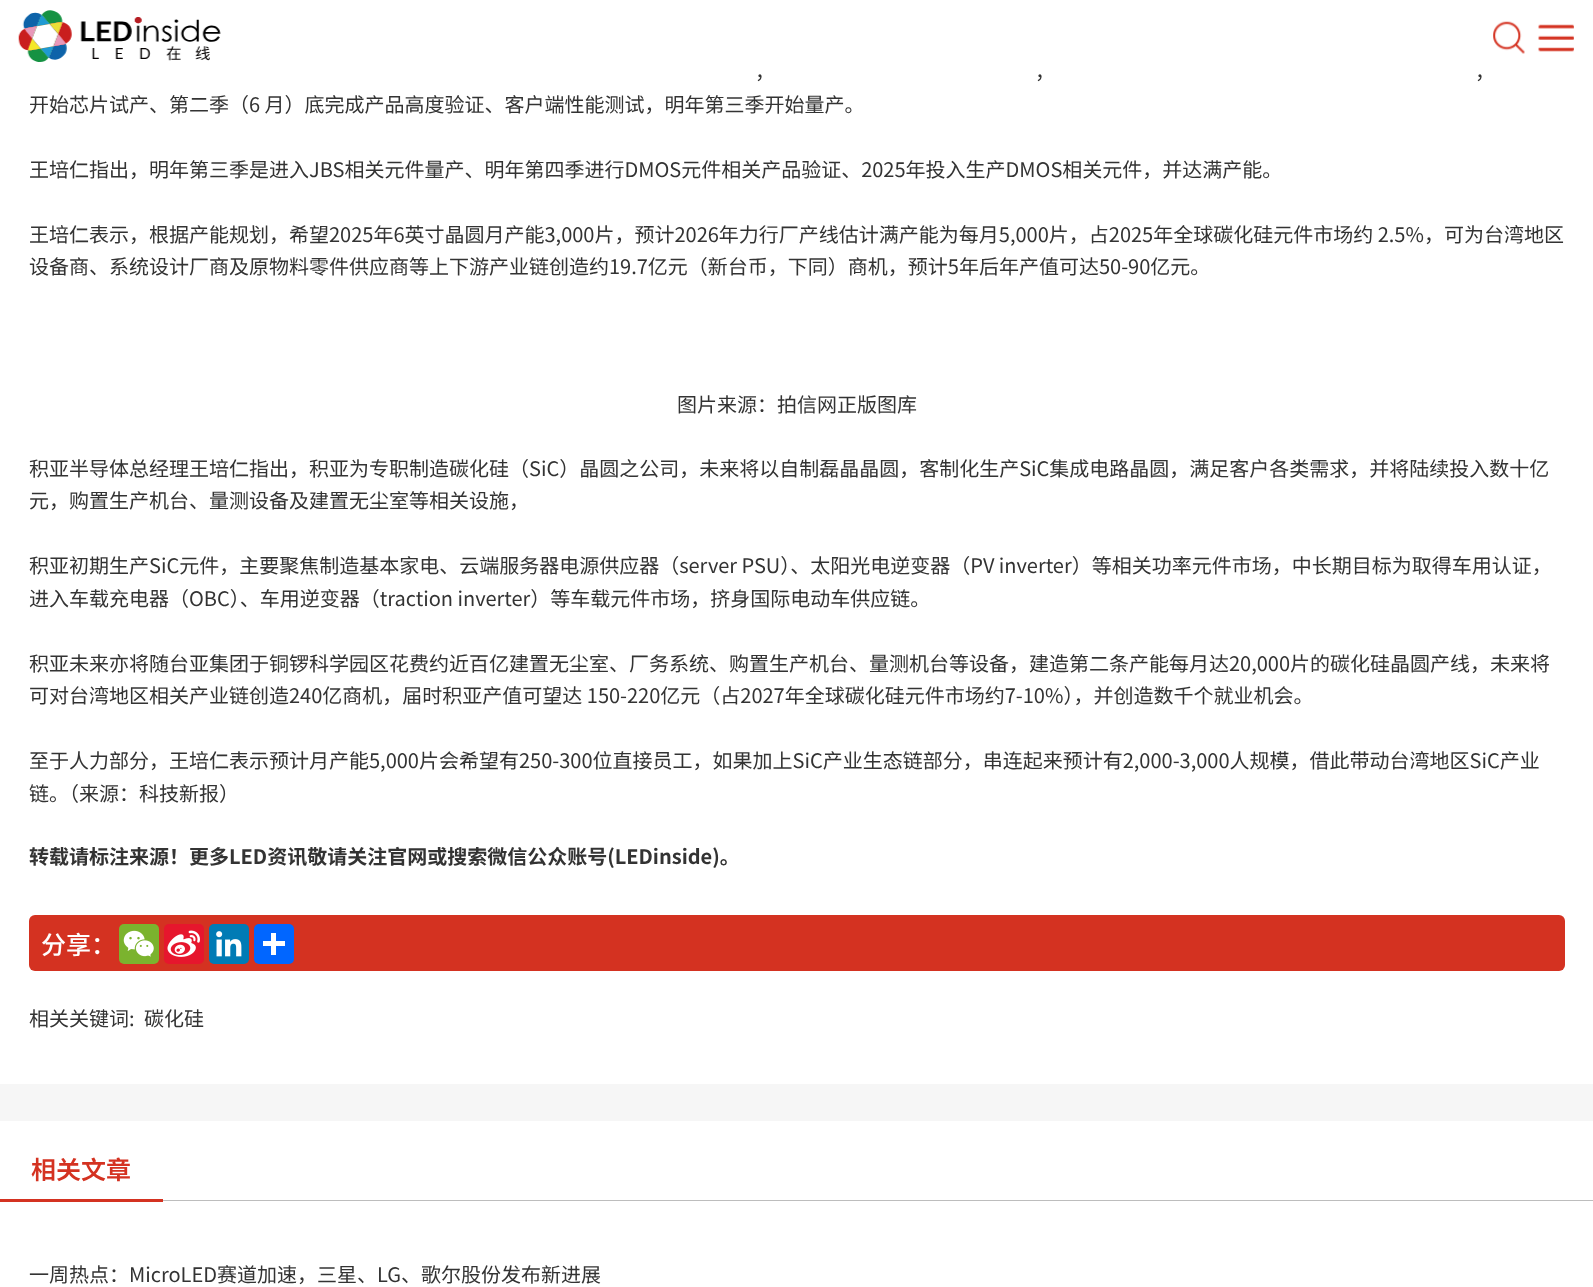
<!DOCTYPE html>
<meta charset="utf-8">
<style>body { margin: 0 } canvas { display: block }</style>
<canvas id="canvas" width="1593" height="1287"></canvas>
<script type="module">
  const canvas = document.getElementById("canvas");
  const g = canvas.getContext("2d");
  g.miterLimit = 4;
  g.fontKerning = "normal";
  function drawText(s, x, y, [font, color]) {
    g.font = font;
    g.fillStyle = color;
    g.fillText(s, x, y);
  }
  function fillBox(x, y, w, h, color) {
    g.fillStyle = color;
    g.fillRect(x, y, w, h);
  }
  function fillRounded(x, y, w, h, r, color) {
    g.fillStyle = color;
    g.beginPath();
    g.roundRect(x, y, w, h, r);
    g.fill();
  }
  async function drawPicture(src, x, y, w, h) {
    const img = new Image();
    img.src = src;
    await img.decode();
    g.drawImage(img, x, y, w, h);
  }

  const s1 = ["20px Noto Sans SC", "#333333"];
  const s2 = ["bold 20px Noto Sans SC", "#333333"];
  const s3 = ["500 25px Noto Sans SC", "#FFFFFF"];
  const s4 = ["600 25px Noto Sans SC", "#D43221"];

  fillBox(0, 0, 1593, 1287, "#F6F6F6");
  fillBox(0, 0, 1593, 1084, "#FFFFFF");
  await drawPicture("pic1.png", 18, 10, 203, 52);
  await drawPicture("pic2.png", 1493, 21, 32, 33);
  await drawPicture("pic3.png", 1538, 24, 36, 28);
  drawText("，", 755, 79, s1);
  drawText("，", 1035, 79, s1);
  drawText("，", 1475, 79, s1);
  drawText("开始芯片试产、第二季（6 月）底完成产品高度验证、客户端性能测试，明年第三季开始量产。", 29, 112, s1);
  drawText("王培仁指出，明年第三季是进入JBS相关元件量产、明年第四季进行DMOS元件相关产品验证、2025年投入生产DMOS相关元件，并达满产能。", 29, 177, s1);
  drawText("王培仁表示，根据产能规划，希望2025年6英寸晶圆月产能3,000片，预计2026年力行厂产线估计满产能为每月5,000片，占2025年全球碳化硅元件市场约 2.5%，可为台湾地区", 29, 242, s1);
  drawText("设备商、系统设计厂商及原物料零件供应商等上下游产业链创造约19.7亿元（新台币，下同）商机，预计5年后年产值可达50-90亿元。", 29, 274, s1);
  drawText("图片来源：拍信网正版图库", 677, 412, s1);
  drawText("积亚半导体总经理王培仁指出，积亚为专职制造碳化硅（SiC）晶圆之公司，未来将以自制磊晶晶圆，客制化生产SiC集成电路晶圆，满足客户各类需求，并将陆续投入数十亿", 29, 476, s1);
  drawText("元，购置生产机台、量测设备及建置无尘室等相关设施，", 29, 508, s1);
  drawText("积亚初期生产SiC元件，主要聚焦制造基本家电、云端服务器电源供应器（server PSU）、太阳光电逆变器（PV inverter）等相关功率元件市场，中长期目标为取得车用认证，", 29, 573, s1);
  drawText("进入车载充电器（OBC）、车用逆变器（traction inverter）等车载元件市场，挤身国际电动车供应链。", 29, 606, s1);
  drawText("积亚未来亦将随台亚集团于铜锣科学园区花费约近百亿建置无尘室、厂务系统、购置生产机台、量测机台等设备，建造第二条产能每月达20,000片的碳化硅晶圆产线，未来将", 29, 671, s1);
  drawText("可对台湾地区相关产业链创造240亿商机，届时积亚产值可望达 150-220亿元（占2027年全球碳化硅元件市场约7-10%），并创造数千个就业机会。", 29, 703, s1);
  drawText("至于人力部分，王培仁表示预计月产能5,000片会希望有250-300位直接员工，如果加上SiC产业生态链部分，串连起来预计有2,000-3,000人规模，借此带动台湾地区SiC产业", 29, 768, s1);
  drawText("链。（来源：科技新报）", 29, 801, s1);
  drawText("转载请标注来源！更多LED资讯敬请关注官网或搜索微信公众账号(LEDinside)。", 29, 864, s2);
  fillRounded(29, 915, 1536, 56, 6, "#D43221");
  drawText("分享：", 41, 954, s3);
  fillRounded(119, 924, 40, 40, 5, "#7BB32E");
  await drawPicture("pic4.png", 123, 930, 31, 27);
  fillRounded(164, 924, 40, 40, 5, "#E6162D");
  await drawPicture("pic5.png", 167, 930, 33, 27);
  fillRounded(209, 924, 40, 40, 5, "#007BB5");
  await drawPicture("pic6.png", 216, 931, 26, 26);
  fillRounded(254, 924, 40, 40, 5, "#0166FF");
  fillBox(271, 933, 5, 22, "#FFFFFF");
  fillBox(263, 941, 22, 5, "#FFFFFF");
  drawText("相关关键词:", 29, 1026, s1);
  drawText("碳化硅", 144, 1026, s1);
  fillBox(0, 1121, 1593, 166, "#FFFFFF");
  fillBox(163, 1200, 1430, 1, "#BDBDBD");
  fillBox(0, 1199, 163, 3, "#D43221");
  drawText("相关文章", 31, 1179, s4);
  drawText("一周热点：MicroLED赛道加速，三星、LG、歌尔股份发布新进展", 29, 1282, s1);
</script>
